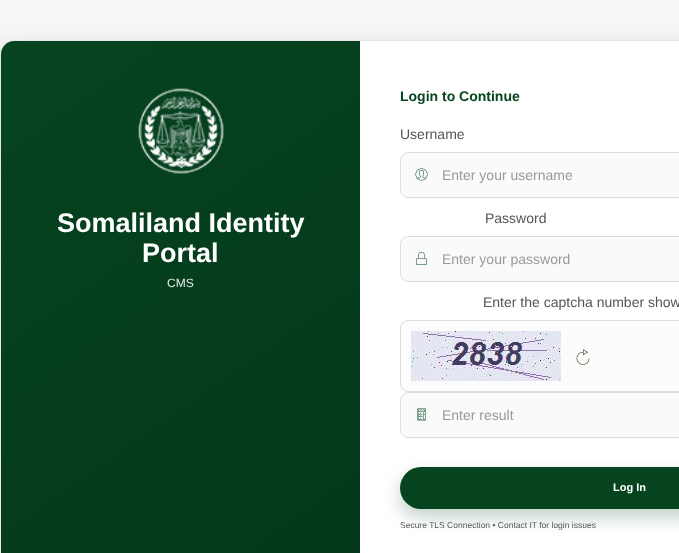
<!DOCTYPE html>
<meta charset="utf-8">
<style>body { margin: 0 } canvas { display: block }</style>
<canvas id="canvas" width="679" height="553"></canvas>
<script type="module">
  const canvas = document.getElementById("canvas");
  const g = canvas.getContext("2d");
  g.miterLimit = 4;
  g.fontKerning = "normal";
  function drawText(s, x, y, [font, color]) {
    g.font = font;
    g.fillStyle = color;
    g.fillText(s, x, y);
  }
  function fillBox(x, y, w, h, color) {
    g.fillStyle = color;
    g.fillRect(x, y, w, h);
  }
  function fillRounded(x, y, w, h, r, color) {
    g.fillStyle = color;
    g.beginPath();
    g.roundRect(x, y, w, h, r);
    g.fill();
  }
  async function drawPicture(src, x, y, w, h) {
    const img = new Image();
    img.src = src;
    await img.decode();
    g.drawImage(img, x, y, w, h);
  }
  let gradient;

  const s1 = ["bold 27px Liberation Sans", "#FFFFFF"];
  const s2 = ["12px Liberation Sans", "#E6ECE8"];
  const s3 = ["bold 14px Liberation Sans", "#064420"];
  const s4 = ["14px Liberation Sans", "#555555"];
  const s5 = ["14px Liberation Sans", "#999999"];
  const s6 = ["bold 11px Liberation Sans", "#FFFFFF"];
  const s7 = ["8.5px Liberation Sans", "#555555"];

  fillBox(0, 0, 679, 553, "#F6F6F6");
  g.fillStyle = "rgba(0, 0, 0, 0.15)";
  g.filter = "blur(12.5px)";
  g.beginPath();
  g.roundRect(0, 50, 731, 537, 14);
  g.fill();
  g.filter = "none";
  g.fillStyle = "#FFFFFF";
  g.beginPath();
  g.roundRect(0.5, 40.5, 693, 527, 13.5);
  g.fill();
  g.strokeStyle = "#E6E6E6";
  g.stroke();
  gradient = g.createLinearGradient(-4.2, 45, 365, 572);
  gradient.addColorStop(0, "#064420");
  gradient.addColorStop(1, "#04371A");
  g.fillStyle = gradient;
  g.beginPath();
  g.moveTo(14, 41);
  g.lineTo(360, 41);
  g.lineTo(360, 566);
  g.lineTo(14, 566);
  g.bezierCurveTo(7, 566, 1, 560, 1, 553);
  g.lineTo(1, 54);
  g.bezierCurveTo(1, 47, 7, 41, 14, 41);
  g.closePath();
  g.fill();
  await drawPicture("pic1.png", 138, 88, 86, 86);
  drawText("Somaliland Identity", 57, 232, s1);
  drawText("Portal", 142, 262, s1);
  drawText("CMS", 167, 287, s2);
  drawText("Login to Continue", 400, 101, s3);
  drawText("Username", 400, 139, s4);
  g.fillStyle = "#FAFAFA";
  g.beginPath();
  g.roundRect(400.5, 152.5, 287, 45, 7.5);
  g.fill();
  g.strokeStyle = "#DDDDDD";
  g.stroke();
  await drawPicture("pic2.png", 415, 168, 13, 13);
  drawText("Enter your username", 442, 180, s5);
  drawText("Password", 485, 223, s4);
  g.fillStyle = "#FAFAFA";
  g.beginPath();
  g.roundRect(400.5, 236.5, 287, 45, 7.5);
  g.fill();
  g.stroke();
  await drawPicture("pic3.png", 416, 251, 11, 14);
  drawText("Enter your password", 442, 264, s5);
  drawText("Enter the captcha number show", 483, 307, s4);
  g.fillStyle = "#FCFCFC";
  g.beginPath();
  g.roundRect(400.5, 320.5, 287, 71, 7.5);
  g.fill();
  g.stroke();
  await drawPicture("pic4.png", 411, 331, 150, 50);
  await drawPicture("pic5.png", 576, 349, 14, 16);
  g.fillStyle = "#FAFAFA";
  g.beginPath();
  g.roundRect(400.5, 392.5, 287, 45, 7.5);
  g.fill();
  g.stroke();
  await drawPicture("pic6.png", 417, 408, 9, 13);
  drawText("Enter result", 442, 420, s5);
  g.fillStyle = "rgba(6, 68, 32, 0.25)";
  g.filter = "blur(9px)";
  g.beginPath();
  g.roundRect(400, 475, 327, 42, 21);
  g.fill();
  g.filter = "none";
  fillRounded(400, 467, 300, 42, 21, "#064420");
  drawText("Log In", 613, 491, s6);
  drawText("Secure TLS Connection • Contact IT for login issues", 400, 528, s7);
</script>
